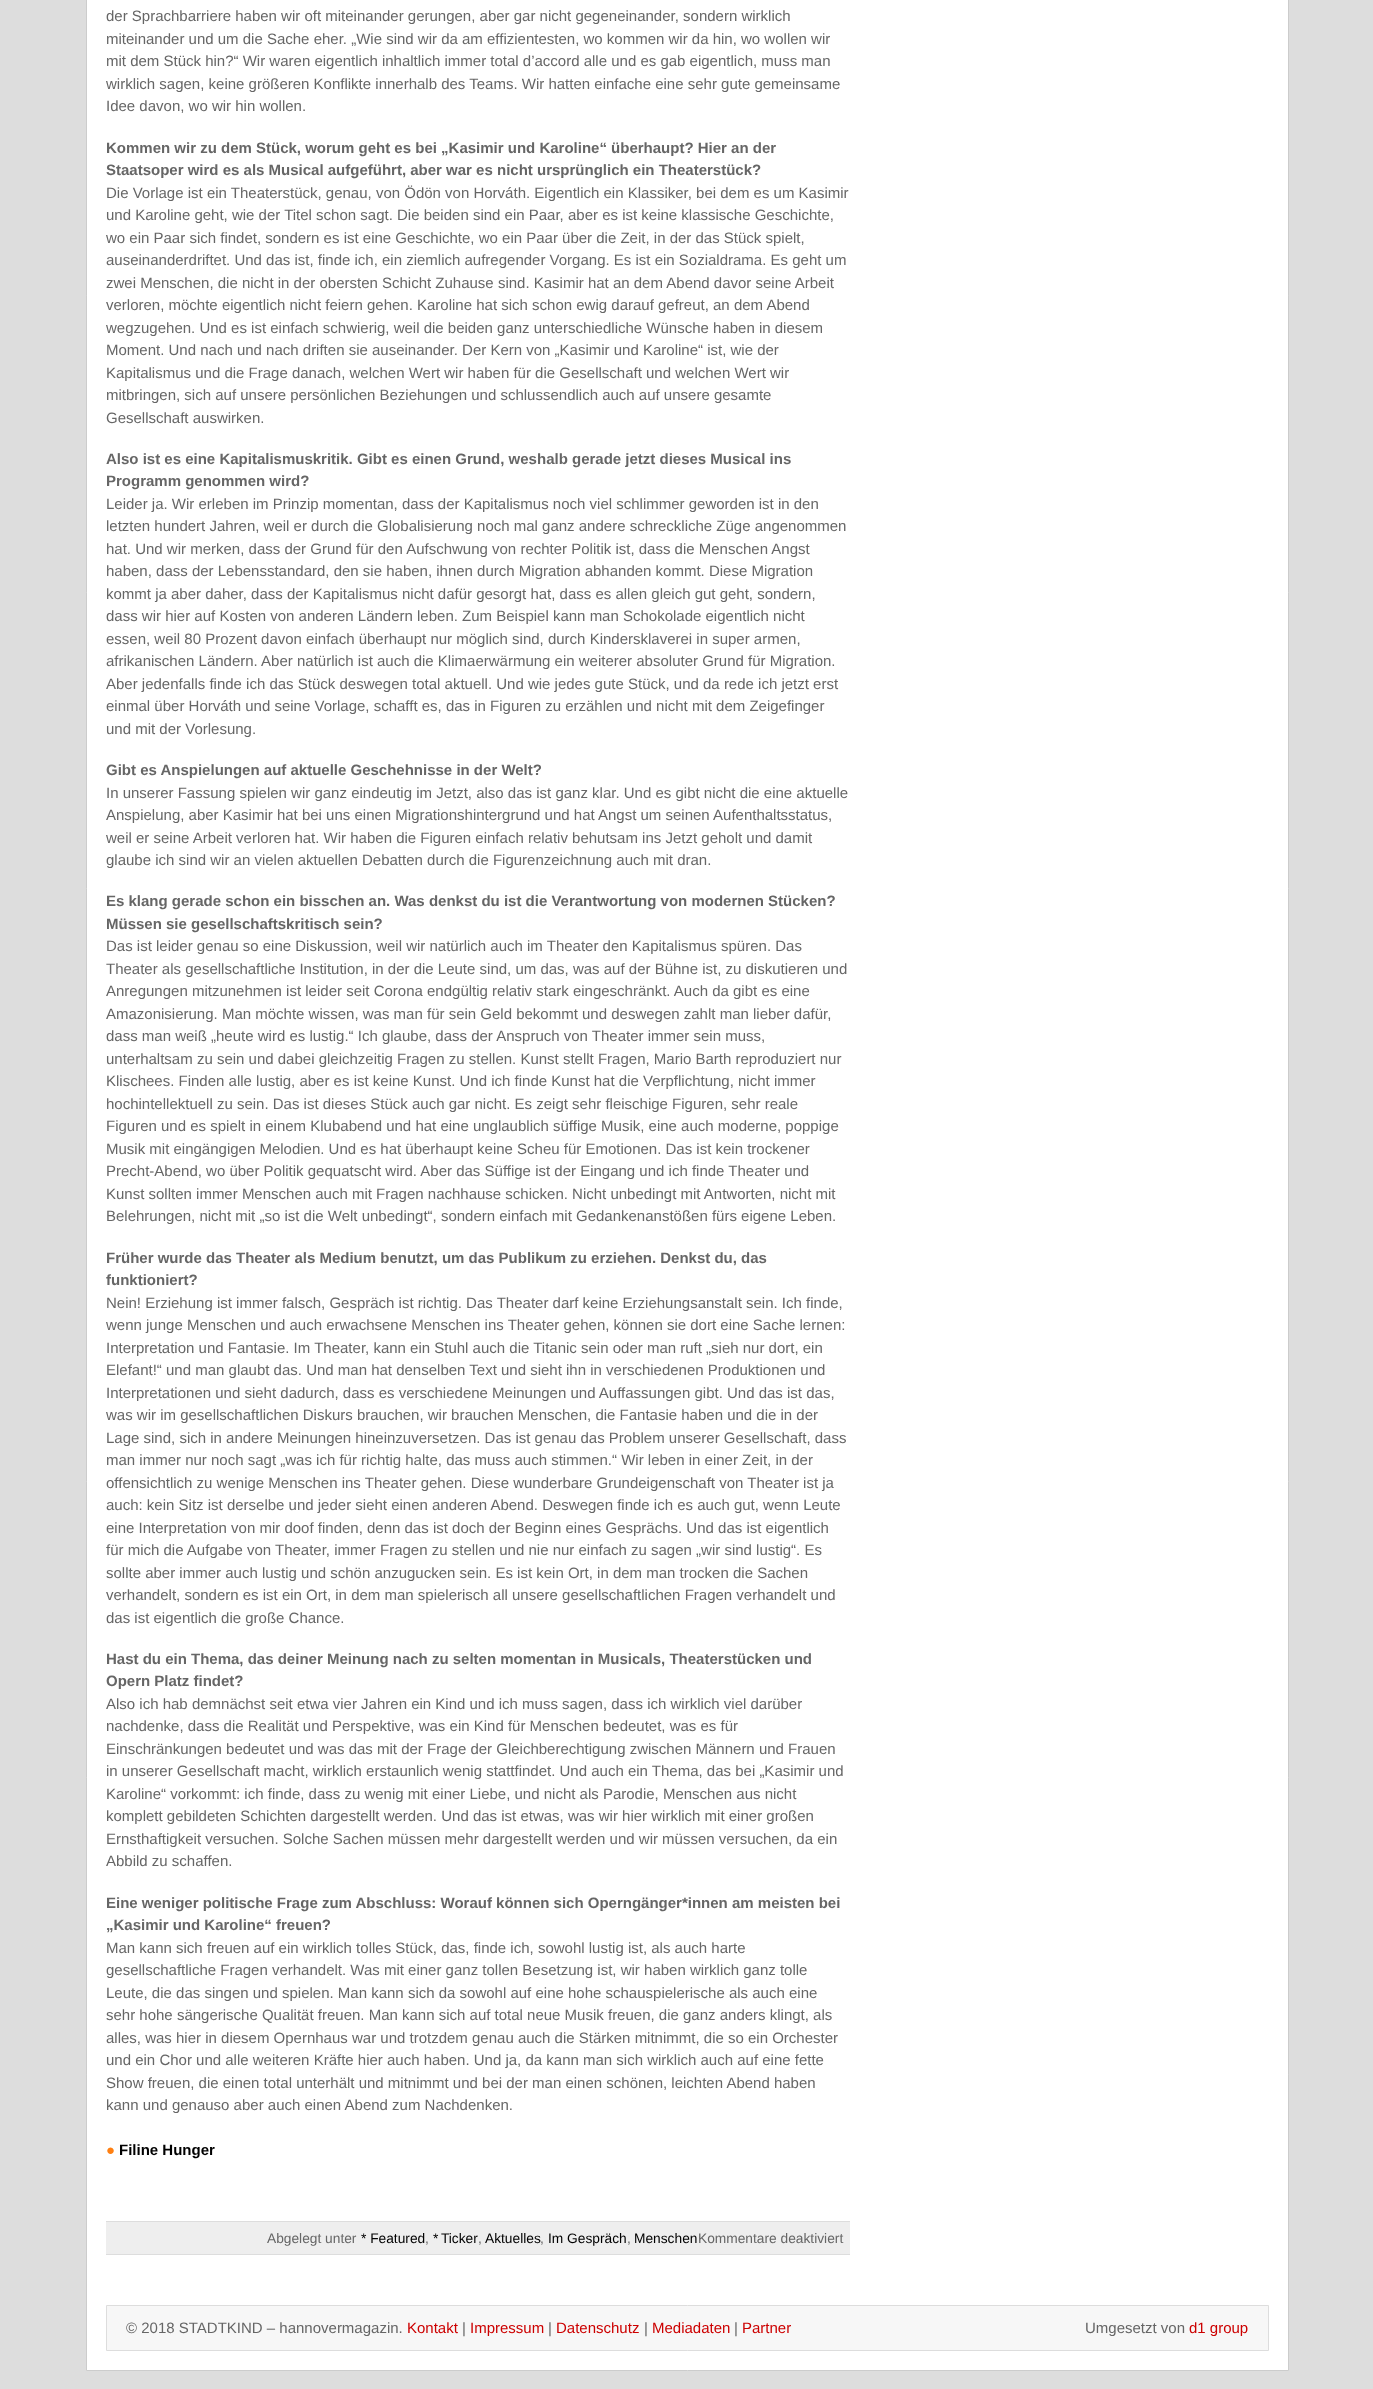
<!DOCTYPE html>
<meta charset="utf-8">
<style>body { margin: 0 } canvas { display: block }</style>
<canvas id="canvas" width="1373" height="2389"></canvas>
<script type="module">
  const canvas = document.getElementById("canvas");
  const g = canvas.getContext("2d");
  g.miterLimit = 4;
  g.fontKerning = "normal";
  function drawText(s, x, y, [font, color]) {
    g.font = font;
    g.fillStyle = color;
    g.fillText(s, x, y);
  }
  function fillBox(x, y, w, h, color) {
    g.fillStyle = color;
    g.fillRect(x, y, w, h);
  }

  const s1 = ["15px Liberation Sans", "#666666"];
  const s2 = ["bold 15px Liberation Sans", "#666666"];
  const s3 = ["bold 15px Liberation Sans", "#FF8012"];
  const s4 = ["bold 15px Liberation Sans", "#000000"];
  const s5 = ["13.75px Liberation Sans", "#666666"];
  const s6 = ["13.75px Liberation Sans", "#000000"];
  const s7 = ["15px Liberation Sans", "#CC0000"];

  fillBox(0, 0, 1373, 2389, "#DDDDDD");
  g.fillStyle = "#FFFFFF";
  g.beginPath();
  g.rect(86.5, -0.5, 1202, 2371);
  g.fill();
  g.strokeStyle = "#CCCCCC";
  g.stroke();
  drawText("der Sprachbarriere haben wir oft miteinander gerungen, aber gar nicht gegeneinander, sondern wirklich", 106, 21, s1);
  drawText("miteinander und um die Sache eher. „Wie sind wir da am effizientesten, wo kommen wir da hin, wo wollen wir", 106, 44, s1);
  drawText("mit dem Stück hin?“ Wir waren eigentlich inhaltlich immer total d’accord alle und es gab eigentlich, muss man", 106, 66, s1);
  drawText("wirklich sagen, keine größeren Konflikte innerhalb des Teams. Wir hatten einfache eine sehr gute gemeinsame", 106, 89, s1);
  drawText("Idee davon, wo wir hin wollen.", 106, 111, s1);
  drawText("Kommen wir zu dem Stück, worum geht es bei „Kasimir und Karoline“ überhaupt? Hier an der", 106, 153, s2);
  drawText("Staatsoper wird es als Musical aufgeführt, aber war es nicht ursprünglich ein Theaterstück?", 106, 175, s2);
  drawText("Die Vorlage ist ein Theaterstück, genau, von Ödön von Horváth. Eigentlich ein Klassiker, bei dem es um Kasimir", 106, 198, s1);
  drawText("und Karoline geht, wie der Titel schon sagt. Die beiden sind ein Paar, aber es ist keine klassische Geschichte,", 106, 220, s1);
  drawText("wo ein Paar sich findet, sondern es ist eine Geschichte, wo ein Paar über die Zeit, in der das Stück spielt,", 106, 243, s1);
  drawText("auseinanderdriftet. Und das ist, finde ich, ein ziemlich aufregender Vorgang. Es ist ein Sozialdrama. Es geht um", 106, 265, s1);
  drawText("zwei Menschen, die nicht in der obersten Schicht Zuhause sind. Kasimir hat an dem Abend davor seine Arbeit", 106, 288, s1);
  drawText("verloren, möchte eigentlich nicht feiern gehen. Karoline hat sich schon ewig darauf gefreut, an dem Abend", 106, 310, s1);
  drawText("wegzugehen. Und es ist einfach schwierig, weil die beiden ganz unterschiedliche Wünsche haben in diesem", 106, 333, s1);
  drawText("Moment. Und nach und nach driften sie auseinander. Der Kern von „Kasimir und Karoline“ ist, wie der", 106, 355, s1);
  drawText("Kapitalismus und die Frage danach, welchen Wert wir haben für die Gesellschaft und welchen Wert wir", 106, 378, s1);
  drawText("mitbringen, sich auf unsere persönlichen Beziehungen und schlussendlich auch auf unsere gesamte", 106, 400, s1);
  drawText("Gesellschaft auswirken.", 106, 423, s1);
  drawText("Also ist es eine Kapitalismuskritik. Gibt es einen Grund, weshalb gerade jetzt dieses Musical ins", 106, 464, s2);
  drawText("Programm genommen wird?", 106, 486, s2);
  drawText("Leider ja. Wir erleben im Prinzip momentan, dass der Kapitalismus noch viel schlimmer geworden ist in den", 106, 509, s1);
  drawText("letzten hundert Jahren, weil er durch die Globalisierung noch mal ganz andere schreckliche Züge angenommen", 106, 531, s1);
  drawText("hat. Und wir merken, dass der Grund für den Aufschwung von rechter Politik ist, dass die Menschen Angst", 106, 554, s1);
  drawText("haben, dass der Lebensstandard, den sie haben, ihnen durch Migration abhanden kommt. Diese Migration", 106, 576, s1);
  drawText("kommt ja aber daher, dass der Kapitalismus nicht dafür gesorgt hat, dass es allen gleich gut geht, sondern,", 106, 599, s1);
  drawText("dass wir hier auf Kosten von anderen Ländern leben. Zum Beispiel kann man Schokolade eigentlich nicht", 106, 621, s1);
  drawText("essen, weil 80 Prozent davon einfach überhaupt nur möglich sind, durch Kindersklaverei in super armen,", 106, 644, s1);
  drawText("afrikanischen Ländern. Aber natürlich ist auch die Klimaerwärmung ein weiterer absoluter Grund für Migration.", 106, 666, s1);
  drawText("Aber jedenfalls finde ich das Stück deswegen total aktuell. Und wie jedes gute Stück, und da rede ich jetzt erst", 106, 689, s1);
  drawText("einmal über Horváth und seine Vorlage, schafft es, das in Figuren zu erzählen und nicht mit dem Zeigefinger", 106, 711, s1);
  drawText("und mit der Vorlesung.", 106, 734, s1);
  drawText("Gibt es Anspielungen auf aktuelle Geschehnisse in der Welt?", 106, 775, s2);
  drawText("In unserer Fassung spielen wir ganz eindeutig im Jetzt, also das ist ganz klar. Und es gibt nicht die eine aktuelle", 106, 798, s1);
  drawText("Anspielung, aber Kasimir hat bei uns einen Migrationshintergrund und hat Angst um seinen Aufenthaltsstatus,", 106, 820, s1);
  drawText("weil er seine Arbeit verloren hat. Wir haben die Figuren einfach relativ behutsam ins Jetzt geholt und damit", 106, 843, s1);
  drawText("glaube ich sind wir an vielen aktuellen Debatten durch die Figurenzeichnung auch mit dran.", 106, 865, s1);
  drawText("Es klang gerade schon ein bisschen an. Was denkst du ist die Verantwortung von modernen Stücken?", 106, 906, s2);
  drawText("Müssen sie gesellschaftskritisch sein?", 106, 929, s2);
  drawText("Das ist leider genau so eine Diskussion, weil wir natürlich auch im Theater den Kapitalismus spüren. Das", 106, 951, s1);
  drawText("Theater als gesellschaftliche Institution, in der die Leute sind, um das, was auf der Bühne ist, zu diskutieren und", 106, 974, s1);
  drawText("Anregungen mitzunehmen ist leider seit Corona endgültig relativ stark eingeschränkt. Auch da gibt es eine", 106, 996, s1);
  drawText("Amazonisierung. Man möchte wissen, was man für sein Geld bekommt und deswegen zahlt man lieber dafür,", 106, 1019, s1);
  drawText("dass man weiß „heute wird es lustig.“ Ich glaube, dass der Anspruch von Theater immer sein muss,", 106, 1041, s1);
  drawText("unterhaltsam zu sein und dabei gleichzeitig Fragen zu stellen. Kunst stellt Fragen, Mario Barth reproduziert nur", 106, 1064, s1);
  drawText("Klischees. Finden alle lustig, aber es ist keine Kunst. Und ich finde Kunst hat die Verpflichtung, nicht immer", 106, 1086, s1);
  drawText("hochintellektuell zu sein. Das ist dieses Stück auch gar nicht. Es zeigt sehr fleischige Figuren, sehr reale", 106, 1109, s1);
  drawText("Figuren und es spielt in einem Klubabend und hat eine unglaublich süffige Musik, eine auch moderne, poppige", 106, 1131, s1);
  drawText("Musik mit eingängigen Melodien. Und es hat überhaupt keine Scheu für Emotionen. Das ist kein trockener", 106, 1154, s1);
  drawText("Precht-Abend, wo über Politik gequatscht wird. Aber das Süffige ist der Eingang und ich finde Theater und", 106, 1176, s1);
  drawText("Kunst sollten immer Menschen auch mit Fragen nachhause schicken. Nicht unbedingt mit Antworten, nicht mit", 106, 1199, s1);
  drawText("Belehrungen, nicht mit „so ist die Welt unbedingt“, sondern einfach mit Gedankenanstößen fürs eigene Leben.", 106, 1221, s1);
  drawText("Früher wurde das Theater als Medium benutzt, um das Publikum zu erziehen. Denkst du, das", 106, 1263, s2);
  drawText("funktioniert?", 106, 1285, s2);
  drawText("Nein! Erziehung ist immer falsch, Gespräch ist richtig. Das Theater darf keine Erziehungsanstalt sein. Ich finde,", 106, 1308, s1);
  drawText("wenn junge Menschen und auch erwachsene Menschen ins Theater gehen, können sie dort eine Sache lernen:", 106, 1330, s1);
  drawText("Interpretation und Fantasie. Im Theater, kann ein Stuhl auch die Titanic sein oder man ruft „sieh nur dort, ein", 106, 1353, s1);
  drawText("Elefant!“ und man glaubt das. Und man hat denselben Text und sieht ihn in verschiedenen Produktionen und", 106, 1375, s1);
  drawText("Interpretationen und sieht dadurch, dass es verschiedene Meinungen und Auffassungen gibt. Und das ist das,", 106, 1398, s1);
  drawText("was wir im gesellschaftlichen Diskurs brauchen, wir brauchen Menschen, die Fantasie haben und die in der", 106, 1420, s1);
  drawText("Lage sind, sich in andere Meinungen hineinzuversetzen. Das ist genau das Problem unserer Gesellschaft, dass", 106, 1443, s1);
  drawText("man immer nur noch sagt „was ich für richtig halte, das muss auch stimmen.“ Wir leben in einer Zeit, in der", 106, 1465, s1);
  drawText("offensichtlich zu wenige Menschen ins Theater gehen. Diese wunderbare Grundeigenschaft von Theater ist ja", 106, 1488, s1);
  drawText("auch: kein Sitz ist derselbe und jeder sieht einen anderen Abend. Deswegen finde ich es auch gut, wenn Leute", 106, 1510, s1);
  drawText("eine Interpretation von mir doof finden, denn das ist doch der Beginn eines Gesprächs. Und das ist eigentlich", 106, 1533, s1);
  drawText("für mich die Aufgabe von Theater, immer Fragen zu stellen und nie nur einfach zu sagen „wir sind lustig“. Es", 106, 1555, s1);
  drawText("sollte aber immer auch lustig und schön anzugucken sein. Es ist kein Ort, in dem man trocken die Sachen", 106, 1578, s1);
  drawText("verhandelt, sondern es ist ein Ort, in dem man spielerisch all unsere gesellschaftlichen Fragen verhandelt und", 106, 1600, s1);
  drawText("das ist eigentlich die große Chance.", 106, 1623, s1);
  drawText("Hast du ein Thema, das deiner Meinung nach zu selten momentan in Musicals, Theaterstücken und", 106, 1664, s2);
  drawText("Opern Platz findet?", 106, 1686, s2);
  drawText("Also ich hab demnächst seit etwa vier Jahren ein Kind und ich muss sagen, dass ich wirklich viel darüber", 106, 1709, s1);
  drawText("nachdenke, dass die Realität und Perspektive, was ein Kind für Menschen bedeutet, was es für", 106, 1731, s1);
  drawText("Einschränkungen bedeutet und was das mit der Frage der Gleichberechtigung zwischen Männern und Frauen", 106, 1754, s1);
  drawText("in unserer Gesellschaft macht, wirklich erstaunlich wenig stattfindet. Und auch ein Thema, das bei „Kasimir und", 106, 1776, s1);
  drawText("Karoline“ vorkommt: ich finde, dass zu wenig mit einer Liebe, und nicht als Parodie, Menschen aus nicht", 106, 1799, s1);
  drawText("komplett gebildeten Schichten dargestellt werden. Und das ist etwas, was wir hier wirklich mit einer großen", 106, 1821, s1);
  drawText("Ernsthaftigkeit versuchen. Solche Sachen müssen mehr dargestellt werden und wir müssen versuchen, da ein", 106, 1844, s1);
  drawText("Abbild zu schaffen.", 106, 1866, s1);
  drawText("Eine weniger politische Frage zum Abschluss: Worauf können sich Operngänger*innen am meisten bei", 106, 1908, s2);
  drawText("„Kasimir und Karoline“ freuen?", 106, 1930, s2);
  drawText("Man kann sich freuen auf ein wirklich tolles Stück, das, finde ich, sowohl lustig ist, als auch harte", 106, 1953, s1);
  drawText("gesellschaftliche Fragen verhandelt. Was mit einer ganz tollen Besetzung ist, wir haben wirklich ganz tolle", 106, 1975, s1);
  drawText("Leute, die das singen und spielen. Man kann sich da sowohl auf eine hohe schauspielerische als auch eine", 106, 1998, s1);
  drawText("sehr hohe sängerische Qualität freuen. Man kann sich auf total neue Musik freuen, die ganz anders klingt, als", 106, 2020, s1);
  drawText("alles, was hier in diesem Opernhaus war und trotzdem genau auch die Stärken mitnimmt, die so ein Orchester", 106, 2043, s1);
  drawText("und ein Chor und alle weiteren Kräfte hier auch haben. Und ja, da kann man sich wirklich auch auf eine fette", 106, 2065, s1);
  drawText("Show freuen, die einen total unterhält und mitnimmt und bei der man einen schönen, leichten Abend haben", 106, 2088, s1);
  drawText("kann und genauso aber auch einen Abend zum Nachdenken.", 106, 2110, s1);
  drawText("●", 106, 2155, s3);
  drawText("Filine Hunger", 119, 2155, s4);
  fillBox(106, 2222, 744, 32, "#EEEEEE");
  fillBox(106, 2221, 744, 1, "#DDDDDD");
  fillBox(106, 2254, 744, 1, "#DDDDDD");
  drawText("Abgelegt unter", 267, 2243, s5);
  drawText("* Featured", 361, 2243, s6);
  drawText(",", 425, 2243, s5);
  g.wordSpacing = "-1px";
  drawText("* Ticker", 433, 2243, s6);
  g.wordSpacing = "0px";
  drawText(",", 478, 2243, s5);
  drawText("Aktuelles", 485, 2243, s6);
  drawText(",", 540, 2243, s5);
  drawText("Im Gespräch", 548, 2243, s6);
  drawText(",", 627, 2243, s5);
  drawText("Menschen", 634, 2243, s6);
  drawText("Kommentare deaktiviert", 698, 2243, s5);
  g.fillStyle = "#F7F7F7";
  g.beginPath();
  g.rect(106.5, 2305.5, 1162, 45);
  g.fill();
  g.strokeStyle = "#DDDDDD";
  g.stroke();
  drawText("© 2018 STADTKIND – hannovermagazin.", 126, 2333, s1);
  drawText("Kontakt", 407, 2333, s7);
  drawText("|", 462, 2333, s1);
  drawText("Impressum", 470, 2333, s7);
  drawText("|", 548, 2333, s1);
  drawText("Datenschutz", 556, 2333, s7);
  drawText("|", 644, 2333, s1);
  drawText("Mediadaten", 652, 2333, s7);
  drawText("|", 734, 2333, s1);
  drawText("Partner", 742, 2333, s7);
  drawText("Umgesetzt von", 1085, 2333, s1);
  drawText("d1 group", 1189, 2333, s7);
</script>
